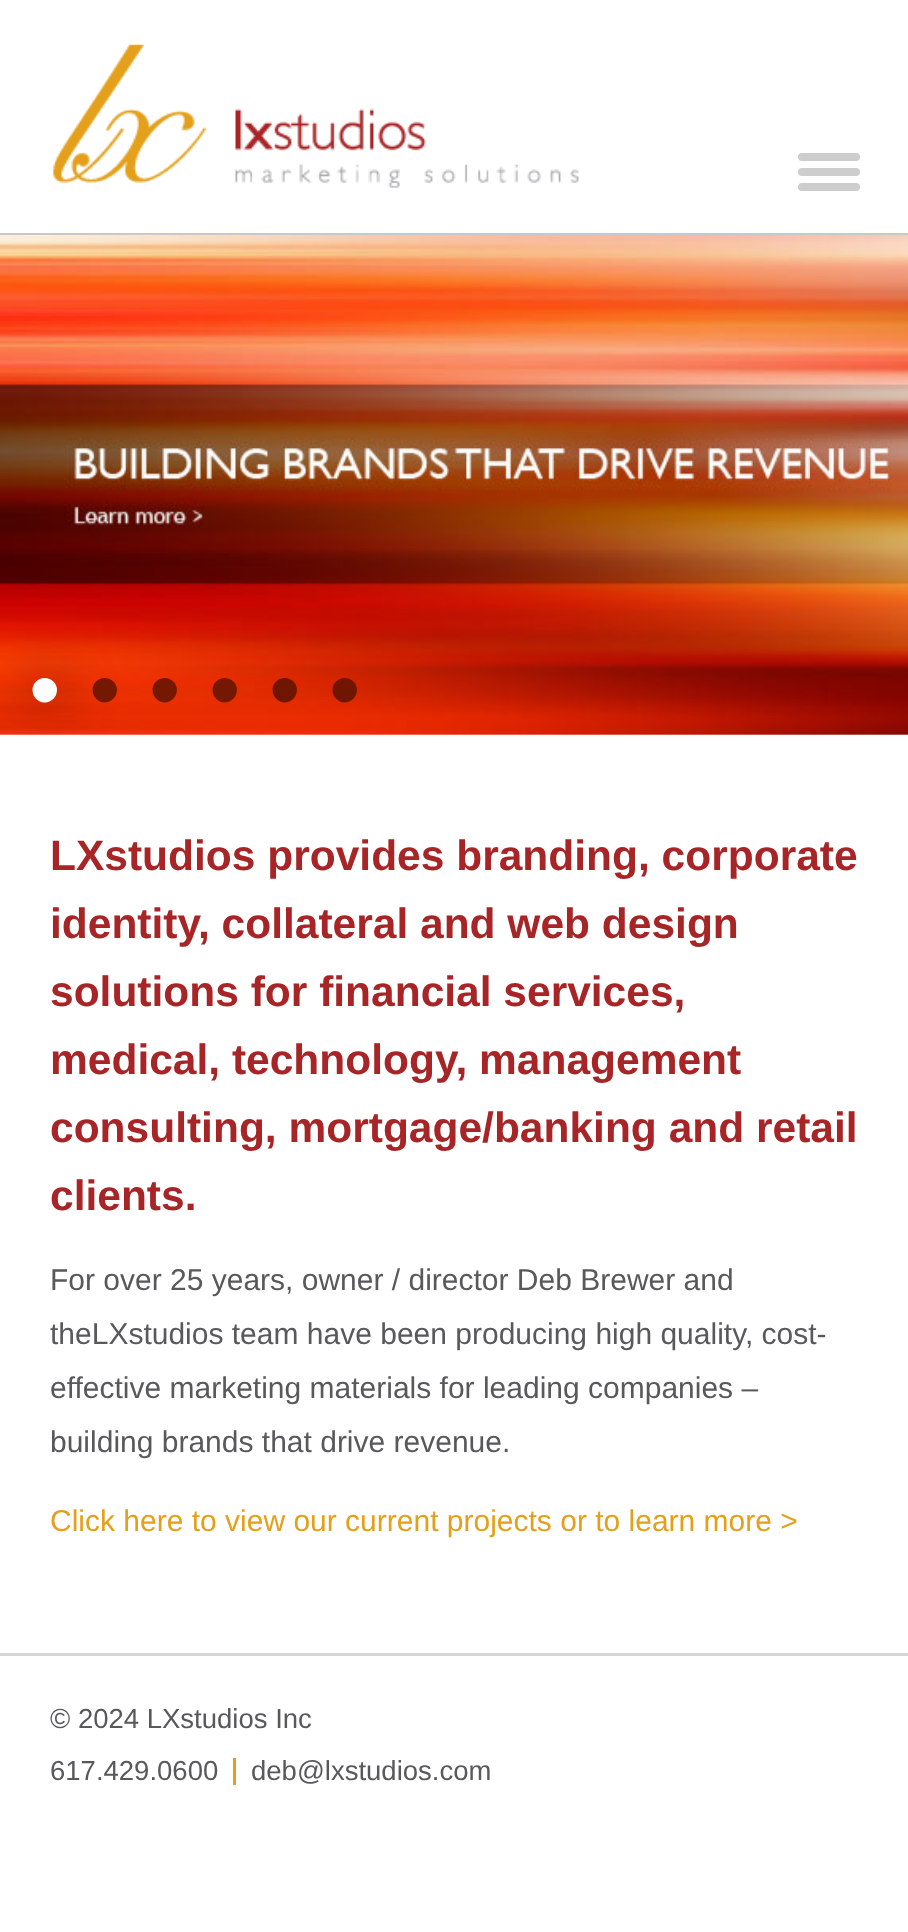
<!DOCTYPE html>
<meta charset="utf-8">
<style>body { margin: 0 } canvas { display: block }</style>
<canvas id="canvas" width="908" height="1932"></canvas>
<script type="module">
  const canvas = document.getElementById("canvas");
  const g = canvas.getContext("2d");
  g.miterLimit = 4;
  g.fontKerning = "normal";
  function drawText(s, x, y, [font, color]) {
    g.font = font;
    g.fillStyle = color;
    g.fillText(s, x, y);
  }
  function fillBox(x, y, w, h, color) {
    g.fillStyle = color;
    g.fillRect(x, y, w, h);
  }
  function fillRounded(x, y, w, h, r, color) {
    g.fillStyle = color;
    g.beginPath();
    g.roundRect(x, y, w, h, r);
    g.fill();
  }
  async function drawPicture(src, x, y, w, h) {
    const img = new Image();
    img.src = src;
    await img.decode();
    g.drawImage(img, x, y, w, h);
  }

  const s1 = ["90px Liberation Sans", "#FFFFFF"];
  const s2 = ["90px Liberation Sans", "#751801"];
  const s3 = ["90px Liberation Sans", "#6F1500"];
  const s4 = ["bold 42.5px Liberation Sans", "#A72527"];
  const s5 = ["30px Liberation Sans", "#58595B"];
  const s6 = ["30px Liberation Sans", "#E4A01B"];
  const s7 = ["27.5px Liberation Sans", "#58595B"];

  fillBox(0, 0, 908, 1932, "#FFFFFF");
  fillBox(0, 233, 908, 2, "#C9C8C8");
  await drawPicture("pic1.png", 53, 44, 526, 144);
  fillRounded(798, 153, 62, 8, 4, "#CDCDCD");
  fillRounded(798, 168, 62, 8, 4, "#CDCDCD");
  fillRounded(798, 183, 62, 8, 4, "#CDCDCD");
  await drawPicture("pic2.png", 0, 235, 908, 500);
  g.save();
  g.beginPath();
  g.rect(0, 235, 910, 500);
  g.clip();
  g.fillStyle = "#000000";
  g.filter = "blur(25px)";
  g.beginPath();
  g.rect(25, 685, 43, 10);
  g.fill();
  g.filter = "none";
  g.restore();
  drawText("•", 29, 720, s1);
  drawText("•", 89, 720, s2);
  drawText("•", 149, 720, s2);
  drawText("•", 209, 720, s2);
  drawText("•", 269, 720, s3);
  drawText("•", 329, 720, s3);
  drawText("LXstudios provides branding, corporate", 50, 870, s4);
  drawText("identity, collateral and web design", 50, 938, s4);
  drawText("solutions for financial services,", 50, 1006, s4);
  drawText("medical, technology, management", 50, 1074, s4);
  drawText("consulting, mortgage/banking and retail", 50, 1142, s4);
  drawText("clients.", 50, 1210, s4);
  drawText("For over 25 years, owner / director Deb Brewer and", 50, 1290, s5);
  drawText("theLXstudios team have been producing high quality, cost-", 50, 1344, s5);
  drawText("effective marketing materials for leading companies –", 50, 1398, s5);
  drawText("building brands that drive revenue.", 50, 1452, s5);
  drawText("Click here to view our current projects or to learn more >", 50, 1531, s6);
  fillBox(0, 1653, 908, 3, "#D6D6D6");
  drawText("© 2024 LXstudios Inc", 50, 1728, s7);
  drawText("617.429.0600", 50, 1780, s7);
  fillBox(233, 1758, 3, 27, "#E4A01B");
  drawText("deb@lxstudios.com", 251, 1780, s7);
</script>
